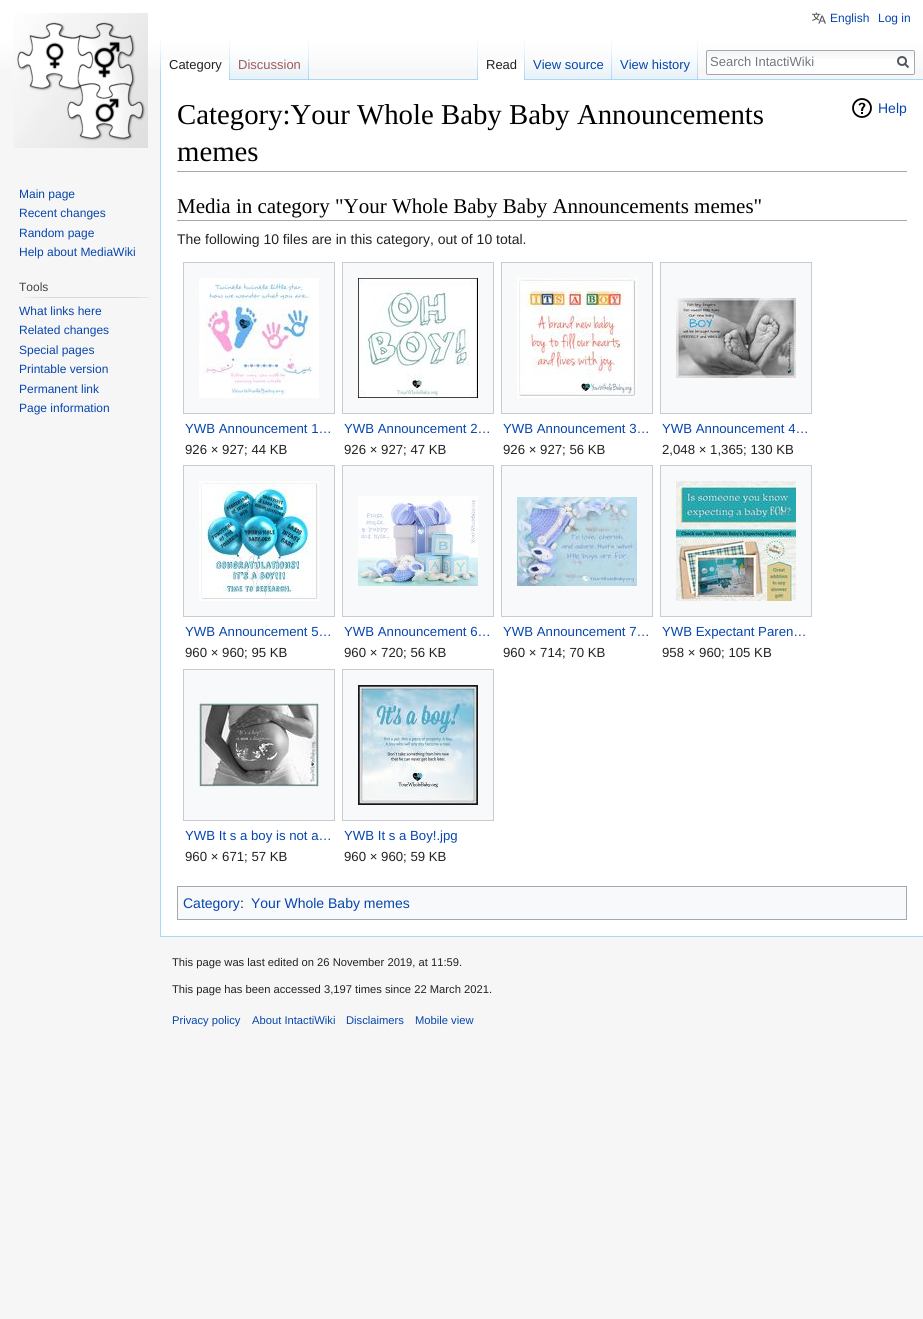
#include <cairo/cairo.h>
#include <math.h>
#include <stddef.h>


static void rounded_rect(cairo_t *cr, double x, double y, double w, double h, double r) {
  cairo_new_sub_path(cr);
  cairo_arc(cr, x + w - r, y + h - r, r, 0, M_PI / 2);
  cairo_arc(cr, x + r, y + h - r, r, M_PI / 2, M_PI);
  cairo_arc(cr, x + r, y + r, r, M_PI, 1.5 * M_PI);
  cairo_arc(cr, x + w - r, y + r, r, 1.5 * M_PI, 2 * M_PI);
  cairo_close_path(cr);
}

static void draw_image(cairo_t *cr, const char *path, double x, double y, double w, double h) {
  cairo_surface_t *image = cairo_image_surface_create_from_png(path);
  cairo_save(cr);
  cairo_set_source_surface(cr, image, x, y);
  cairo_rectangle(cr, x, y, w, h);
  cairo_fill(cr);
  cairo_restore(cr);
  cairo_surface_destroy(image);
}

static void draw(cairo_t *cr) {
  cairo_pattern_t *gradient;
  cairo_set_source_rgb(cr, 246 / 255.0, 246 / 255.0, 246 / 255.0);
  cairo_paint(cr);
  gradient = cairo_pattern_create_linear(462, 0, 462, 80);
  cairo_pattern_add_color_stop_rgba(gradient, 0.5, 1, 1, 1, 1);
  cairo_pattern_add_color_stop_rgba(gradient, 1, 246 / 255.0, 246 / 255.0, 246 / 255.0, 1);
  cairo_set_source(cr, gradient);
  cairo_pattern_destroy(gradient);
  cairo_rectangle(cr, 0, 0, 923, 69);
  cairo_fill(cr);
  draw_image(cr, "images/1.png", 812, 12, 14, 12);
  draw_image(cr, "images/2.png", 160, 40, 1, 39);
  cairo_set_source_rgb(cr, 1, 1, 1);
  cairo_rectangle(cr, 161, 60, 68, 20);
  cairo_fill(cr);
  draw_image(cr, "images/3.png", 229, 40, 1, 40);
  draw_image(cr, "images/4.png", 230, 40, 78, 39);
  draw_image(cr, "images/2.png", 308, 40, 1, 39);
  draw_image(cr, "images/2.png", 477, 40, 1, 39);
  cairo_set_source_rgb(cr, 167 / 255.0, 215 / 255.0, 249 / 255.0);
  cairo_rectangle(cr, 230, 79, 693, 1);
  cairo_fill(cr);
  cairo_set_source_rgb(cr, 1, 1, 1);
  cairo_rectangle(cr, 478, 60, 46, 20);
  cairo_fill(cr);
  draw_image(cr, "images/3.png", 524, 40, 1, 40);
  draw_image(cr, "images/5.png", 525, 62, 86, 17);
  draw_image(cr, "images/2.png", 611, 40, 1, 39);
  draw_image(cr, "images/6.png", 612, 40, 85, 39);
  draw_image(cr, "images/2.png", 697, 40, 1, 39);
  rounded_rect(cr, 706, 50, 209, 25, 2);
  cairo_fill(cr);
  draw_image(cr, "images/7.png", 706, 51, 209, 8);
  rounded_rect(cr, 706.5, 50.5, 208, 24, 1.5);
  cairo_set_source_rgb(cr, 162 / 255.0, 169 / 255.0, 177 / 255.0);
  cairo_set_line_width(cr, 1);
  cairo_stroke(cr);
  cairo_new_path(cr);
  cairo_move_to(cr, 908.5, 67.5);
  cairo_line_to(cr, 904.5, 63.5);
  cairo_set_source_rgb(cr, 84 / 255.0, 89 / 255.0, 93 / 255.0);
  cairo_set_line_width(cr, 2);
  cairo_stroke(cr);
  cairo_arc(cr, 902, 61, 4, 0, 2 * M_PI);
  cairo_stroke(cr);
  draw_image(cr, "images/8.png", 13, 13, 135, 135);
  draw_image(cr, "images/9.png", 22, 297, 128, 1);
  cairo_set_source_rgb(cr, 1, 1, 1);
  cairo_rectangle(cr, 161, 80, 762, 856);
  cairo_fill(cr);
  cairo_set_source_rgb(cr, 167 / 255.0, 215 / 255.0, 249 / 255.0);
  cairo_rectangle(cr, 160, 936, 763, 1);
  cairo_fill(cr);
  cairo_rectangle(cr, 160, 79, 1, 858);
  cairo_fill(cr);
  cairo_set_source_rgb(cr, 162 / 255.0, 169 / 255.0, 177 / 255.0);
  cairo_rectangle(cr, 177, 171, 730, 1);
  cairo_fill(cr);
  draw_image(cr, "images/10.png", 852, 98, 20, 20);
  cairo_rectangle(cr, 177, 220, 730, 1);
  cairo_fill(cr);
  cairo_set_source_rgb(cr, 248 / 255.0, 249 / 255.0, 250 / 255.0);
  cairo_rectangle(cr, 183.5, 262.5, 151, 151);
  cairo_fill_preserve(cr);
  cairo_set_source_rgb(cr, 200 / 255.0, 204 / 255.0, 209 / 255.0);
  cairo_set_line_width(cr, 1);
  cairo_stroke(cr);
  draw_image(cr, "images/11.png", 199, 278, 120, 120);
  cairo_set_source_rgb(cr, 248 / 255.0, 249 / 255.0, 250 / 255.0);
  cairo_rectangle(cr, 342.5, 262.5, 151, 151);
  cairo_fill_preserve(cr);
  cairo_set_source_rgb(cr, 200 / 255.0, 204 / 255.0, 209 / 255.0);
  cairo_stroke(cr);
  draw_image(cr, "images/12.png", 358, 278, 120, 120);
  cairo_set_source_rgb(cr, 248 / 255.0, 249 / 255.0, 250 / 255.0);
  cairo_rectangle(cr, 501.5, 262.5, 151, 151);
  cairo_fill_preserve(cr);
  cairo_set_source_rgb(cr, 200 / 255.0, 204 / 255.0, 209 / 255.0);
  cairo_stroke(cr);
  draw_image(cr, "images/13.png", 517, 278, 120, 120);
  cairo_set_source_rgb(cr, 248 / 255.0, 249 / 255.0, 250 / 255.0);
  cairo_rectangle(cr, 660.5, 262.5, 151, 151);
  cairo_fill_preserve(cr);
  cairo_set_source_rgb(cr, 200 / 255.0, 204 / 255.0, 209 / 255.0);
  cairo_stroke(cr);
  draw_image(cr, "images/14.png", 676, 298, 120, 80);
  cairo_set_source_rgb(cr, 248 / 255.0, 249 / 255.0, 250 / 255.0);
  cairo_rectangle(cr, 183.5, 465.5, 151, 151);
  cairo_fill_preserve(cr);
  cairo_set_source_rgb(cr, 200 / 255.0, 204 / 255.0, 209 / 255.0);
  cairo_stroke(cr);
  draw_image(cr, "images/15.png", 199, 481, 120, 120);
  cairo_set_source_rgb(cr, 248 / 255.0, 249 / 255.0, 250 / 255.0);
  cairo_rectangle(cr, 342.5, 465.5, 151, 151);
  cairo_fill_preserve(cr);
  cairo_set_source_rgb(cr, 200 / 255.0, 204 / 255.0, 209 / 255.0);
  cairo_stroke(cr);
  draw_image(cr, "images/16.png", 358, 496, 120, 90);
  cairo_set_source_rgb(cr, 248 / 255.0, 249 / 255.0, 250 / 255.0);
  cairo_rectangle(cr, 501.5, 465.5, 151, 151);
  cairo_fill_preserve(cr);
  cairo_set_source_rgb(cr, 200 / 255.0, 204 / 255.0, 209 / 255.0);
  cairo_stroke(cr);
  draw_image(cr, "images/17.png", 517, 497, 120, 89);
  cairo_set_source_rgb(cr, 248 / 255.0, 249 / 255.0, 250 / 255.0);
  cairo_rectangle(cr, 660.5, 465.5, 151, 151);
  cairo_fill_preserve(cr);
  cairo_set_source_rgb(cr, 200 / 255.0, 204 / 255.0, 209 / 255.0);
  cairo_stroke(cr);
  draw_image(cr, "images/18.png", 676, 481, 120, 120);
  cairo_set_source_rgb(cr, 248 / 255.0, 249 / 255.0, 250 / 255.0);
  cairo_rectangle(cr, 183.5, 669.5, 151, 151);
  cairo_fill_preserve(cr);
  cairo_set_source_rgb(cr, 200 / 255.0, 204 / 255.0, 209 / 255.0);
  cairo_stroke(cr);
  draw_image(cr, "images/19.png", 199, 703, 120, 84);
  cairo_set_source_rgb(cr, 248 / 255.0, 249 / 255.0, 250 / 255.0);
  cairo_rectangle(cr, 342.5, 669.5, 151, 151);
  cairo_fill_preserve(cr);
  cairo_set_source_rgb(cr, 200 / 255.0, 204 / 255.0, 209 / 255.0);
  cairo_stroke(cr);
  draw_image(cr, "images/20.png", 358, 685, 120, 120);
  cairo_set_source_rgb(cr, 248 / 255.0, 249 / 255.0, 250 / 255.0);
  cairo_rectangle(cr, 177.5, 886.5, 729, 33);
  cairo_fill_preserve(cr);
  cairo_set_source_rgb(cr, 162 / 255.0, 169 / 255.0, 177 / 255.0);
  cairo_stroke(cr);
  cairo_select_font_face(cr, "Liberation Sans", CAIRO_FONT_SLANT_NORMAL, CAIRO_FONT_WEIGHT_NORMAL);
  cairo_set_font_size(cr, 12);
  cairo_set_source_rgb(cr, 6 / 255.0, 69 / 255.0, 173 / 255.0);
  cairo_move_to(cr, 830, 22);
  cairo_show_text(cr, "English");
  cairo_move_to(cr, 878, 22);
  cairo_show_text(cr, "Log in");
  cairo_set_font_size(cr, 13);
  cairo_set_source_rgb(cr, 34 / 255.0, 34 / 255.0, 34 / 255.0);
  cairo_move_to(cr, 169, 69);
  cairo_show_text(cr, "Category");
  cairo_set_source_rgb(cr, 165 / 255.0, 88 / 255.0, 88 / 255.0);
  cairo_move_to(cr, 238, 69);
  cairo_show_text(cr, "Discussion");
  cairo_set_source_rgb(cr, 34 / 255.0, 34 / 255.0, 34 / 255.0);
  cairo_move_to(cr, 486, 69);
  cairo_show_text(cr, "Read");
  cairo_set_source_rgb(cr, 6 / 255.0, 69 / 255.0, 173 / 255.0);
  cairo_move_to(cr, 533, 69);
  cairo_show_text(cr, "View source");
  cairo_move_to(cr, 620, 69);
  cairo_show_text(cr, "View history");
  cairo_set_source_rgb(cr, 114 / 255.0, 119 / 255.0, 125 / 255.0);
  cairo_move_to(cr, 710, 66);
  cairo_show_text(cr, "Search IntactiWiki");
  cairo_set_font_size(cr, 12);
  cairo_set_source_rgb(cr, 6 / 255.0, 69 / 255.0, 173 / 255.0);
  cairo_move_to(cr, 19, 198);
  cairo_show_text(cr, "Main page");
  cairo_move_to(cr, 19, 217);
  cairo_show_text(cr, "Recent changes");
  cairo_move_to(cr, 19, 237);
  cairo_show_text(cr, "Random page");
  cairo_move_to(cr, 19, 256);
  cairo_show_text(cr, "Help about MediaWiki");
  cairo_set_source_rgb(cr, 68 / 255.0, 68 / 255.0, 68 / 255.0);
  cairo_move_to(cr, 19, 291);
  cairo_show_text(cr, "Tools");
  cairo_set_source_rgb(cr, 6 / 255.0, 69 / 255.0, 173 / 255.0);
  cairo_move_to(cr, 19, 315);
  cairo_show_text(cr, "What links here");
  cairo_move_to(cr, 19, 334);
  cairo_show_text(cr, "Related changes");
  cairo_move_to(cr, 19, 354);
  cairo_show_text(cr, "Special pages");
  cairo_move_to(cr, 19, 373);
  cairo_show_text(cr, "Printable version");
  cairo_move_to(cr, 19, 393);
  cairo_show_text(cr, "Permanent link");
  cairo_move_to(cr, 19, 412);
  cairo_show_text(cr, "Page information");
  cairo_select_font_face(cr, "Liberation Serif", CAIRO_FONT_SLANT_NORMAL, CAIRO_FONT_WEIGHT_NORMAL);
  cairo_set_font_size(cr, 28.8);
  cairo_set_source_rgb(cr, 0, 0, 0);
  cairo_move_to(cr, 177, 124);
  cairo_show_text(cr, "Category:Your Whole Baby Baby Announcements");
  cairo_move_to(cr, 177, 161);
  cairo_show_text(cr, "memes");
  cairo_select_font_face(cr, "Liberation Sans", CAIRO_FONT_SLANT_NORMAL, CAIRO_FONT_WEIGHT_NORMAL);
  cairo_set_font_size(cr, 14);
  cairo_set_source_rgb(cr, 6 / 255.0, 69 / 255.0, 173 / 255.0);
  cairo_move_to(cr, 878, 113);
  cairo_show_text(cr, "Help");
  cairo_select_font_face(cr, "Liberation Serif", CAIRO_FONT_SLANT_NORMAL, CAIRO_FONT_WEIGHT_NORMAL);
  cairo_set_font_size(cr, 21);
  cairo_set_source_rgb(cr, 0, 0, 0);
  cairo_move_to(cr, 177, 213);
  cairo_show_text(cr, "Media in category \"Your Whole Baby Baby Announcements memes\"");
  cairo_select_font_face(cr, "Liberation Sans", CAIRO_FONT_SLANT_NORMAL, CAIRO_FONT_WEIGHT_NORMAL);
  cairo_set_font_size(cr, 14);
  cairo_set_source_rgb(cr, 34 / 255.0, 34 / 255.0, 34 / 255.0);
  cairo_move_to(cr, 177, 244);
  cairo_show_text(cr, "The following 10 files are in this category, out of 10 total.");
  cairo_set_font_size(cr, 13.2);
  cairo_set_source_rgb(cr, 6 / 255.0, 69 / 255.0, 173 / 255.0);
  cairo_move_to(cr, 185, 433);
  cairo_show_text(cr, "YWB Announcement 1…");
  cairo_set_source_rgb(cr, 34 / 255.0, 34 / 255.0, 34 / 255.0);
  cairo_move_to(cr, 185, 454);
  cairo_show_text(cr, "926 × 927; 44 KB");
  cairo_set_source_rgb(cr, 6 / 255.0, 69 / 255.0, 173 / 255.0);
  cairo_move_to(cr, 344, 433);
  cairo_show_text(cr, "YWB Announcement 2…");
  cairo_set_source_rgb(cr, 34 / 255.0, 34 / 255.0, 34 / 255.0);
  cairo_move_to(cr, 344, 454);
  cairo_show_text(cr, "926 × 927; 47 KB");
  cairo_set_source_rgb(cr, 6 / 255.0, 69 / 255.0, 173 / 255.0);
  cairo_move_to(cr, 503, 433);
  cairo_show_text(cr, "YWB Announcement 3…");
  cairo_set_source_rgb(cr, 34 / 255.0, 34 / 255.0, 34 / 255.0);
  cairo_move_to(cr, 503, 454);
  cairo_show_text(cr, "926 × 927; 56 KB");
  cairo_set_source_rgb(cr, 6 / 255.0, 69 / 255.0, 173 / 255.0);
  cairo_move_to(cr, 662, 433);
  cairo_show_text(cr, "YWB Announcement 4…");
  cairo_set_source_rgb(cr, 34 / 255.0, 34 / 255.0, 34 / 255.0);
  cairo_move_to(cr, 662, 454);
  cairo_show_text(cr, "2,048 × 1,365; 130 KB");
  cairo_set_source_rgb(cr, 6 / 255.0, 69 / 255.0, 173 / 255.0);
  cairo_move_to(cr, 185, 636);
  cairo_show_text(cr, "YWB Announcement 5…");
  cairo_set_source_rgb(cr, 34 / 255.0, 34 / 255.0, 34 / 255.0);
  cairo_move_to(cr, 185, 657);
  cairo_show_text(cr, "960 × 960; 95 KB");
  cairo_set_source_rgb(cr, 6 / 255.0, 69 / 255.0, 173 / 255.0);
  cairo_move_to(cr, 344, 636);
  cairo_show_text(cr, "YWB Announcement 6…");
  cairo_set_source_rgb(cr, 34 / 255.0, 34 / 255.0, 34 / 255.0);
  cairo_move_to(cr, 344, 657);
  cairo_show_text(cr, "960 × 720; 56 KB");
  cairo_set_source_rgb(cr, 6 / 255.0, 69 / 255.0, 173 / 255.0);
  cairo_move_to(cr, 503, 636);
  cairo_show_text(cr, "YWB Announcement 7…");
  cairo_set_source_rgb(cr, 34 / 255.0, 34 / 255.0, 34 / 255.0);
  cairo_move_to(cr, 503, 657);
  cairo_show_text(cr, "960 × 714; 70 KB");
  cairo_set_source_rgb(cr, 6 / 255.0, 69 / 255.0, 173 / 255.0);
  cairo_move_to(cr, 662, 636);
  cairo_show_text(cr, "YWB Expectant Paren…");
  cairo_set_source_rgb(cr, 34 / 255.0, 34 / 255.0, 34 / 255.0);
  cairo_move_to(cr, 662, 657);
  cairo_show_text(cr, "958 × 960; 105 KB");
  cairo_set_source_rgb(cr, 6 / 255.0, 69 / 255.0, 173 / 255.0);
  cairo_move_to(cr, 185, 840);
  cairo_show_text(cr, "YWB It s a boy is not a…");
  cairo_set_source_rgb(cr, 34 / 255.0, 34 / 255.0, 34 / 255.0);
  cairo_move_to(cr, 185, 861);
  cairo_show_text(cr, "960 × 671; 57 KB");
  cairo_set_source_rgb(cr, 6 / 255.0, 69 / 255.0, 173 / 255.0);
  cairo_move_to(cr, 344, 840);
  cairo_show_text(cr, "YWB It s a Boy!.jpg");
  cairo_set_source_rgb(cr, 34 / 255.0, 34 / 255.0, 34 / 255.0);
  cairo_move_to(cr, 344, 861);
  cairo_show_text(cr, "960 × 960; 59 KB");
  cairo_set_font_size(cr, 14);
  cairo_set_source_rgb(cr, 6 / 255.0, 69 / 255.0, 173 / 255.0);
  cairo_move_to(cr, 183, 908);
  cairo_show_text(cr, "Category");
  cairo_set_source_rgb(cr, 34 / 255.0, 34 / 255.0, 34 / 255.0);
  cairo_move_to(cr, 240, 908);
  cairo_show_text(cr, ":");
  cairo_set_source_rgb(cr, 6 / 255.0, 69 / 255.0, 173 / 255.0);
  cairo_move_to(cr, 251, 908);
  cairo_show_text(cr, "Your Whole Baby memes");
  cairo_set_font_size(cr, 11.2);
  cairo_set_source_rgb(cr, 34 / 255.0, 34 / 255.0, 34 / 255.0);
  cairo_move_to(cr, 172, 966);
  cairo_show_text(cr, "This page was last edited on 26 November 2019, at 11:59.");
  cairo_move_to(cr, 172, 993);
  cairo_show_text(cr, "This page has been accessed 3,197 times since 22 March 2021.");
  cairo_set_source_rgb(cr, 6 / 255.0, 69 / 255.0, 173 / 255.0);
  cairo_move_to(cr, 172, 1024);
  cairo_show_text(cr, "Privacy policy");
  cairo_move_to(cr, 252, 1024);
  cairo_show_text(cr, "About IntactiWiki");
  cairo_move_to(cr, 346, 1024);
  cairo_show_text(cr, "Disclaimers");
  cairo_move_to(cr, 415, 1024);
  cairo_show_text(cr, "Mobile view");
}

int main(void) {
  cairo_surface_t *surface = cairo_image_surface_create(CAIRO_FORMAT_RGB24, 923, 1319);
  cairo_t *cr = cairo_create(surface);
  cairo_font_options_t *options = cairo_font_options_create();
  cairo_font_options_set_hint_metrics(options, CAIRO_HINT_METRICS_OFF);
  cairo_font_options_set_hint_style(options, CAIRO_HINT_STYLE_NONE);
  cairo_set_font_options(cr, options);
  cairo_set_miter_limit(cr, 4);
  draw(cr);
  cairo_surface_write_to_png(surface, "out.png");
  cairo_font_options_destroy(options);
  cairo_destroy(cr);
  cairo_surface_destroy(surface);
  return 0;
}
